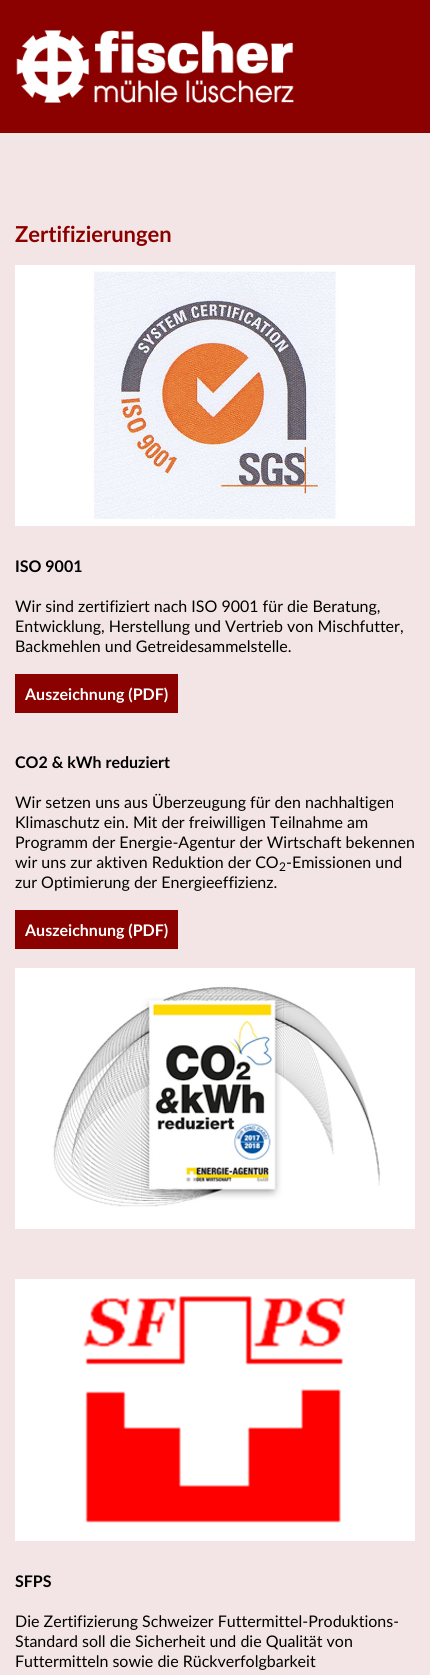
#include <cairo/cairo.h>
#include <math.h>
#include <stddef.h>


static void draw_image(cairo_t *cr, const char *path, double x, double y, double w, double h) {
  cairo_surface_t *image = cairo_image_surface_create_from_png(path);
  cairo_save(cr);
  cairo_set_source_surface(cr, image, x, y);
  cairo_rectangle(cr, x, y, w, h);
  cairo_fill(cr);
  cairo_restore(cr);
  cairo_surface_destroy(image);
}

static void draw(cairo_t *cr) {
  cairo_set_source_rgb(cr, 243 / 255.0, 229 / 255.0, 229 / 255.0);
  cairo_paint(cr);
  cairo_set_source_rgb(cr, 139 / 255.0, 1 / 255.0, 0);
  cairo_rectangle(cr, 0, 0, 430, 133);
  cairo_fill(cr);
  draw_image(cr, "images/1.png", 16, 30, 278, 73);
  draw_image(cr, "images/2.png", 15, 265, 400, 261);
  cairo_rectangle(cr, 15, 674, 163, 39);
  cairo_fill(cr);
  cairo_rectangle(cr, 15, 910, 163, 39);
  cairo_fill(cr);
  draw_image(cr, "images/3.png", 15, 968, 400, 261);
  draw_image(cr, "images/4.png", 15, 1279, 400, 262);
  cairo_select_font_face(cr, "Lato", CAIRO_FONT_SLANT_NORMAL, CAIRO_FONT_WEIGHT_BOLD);
  cairo_set_font_size(cr, 22);
  cairo_move_to(cr, 15, 242);
  cairo_show_text(cr, "Zertifizierungen");
  cairo_set_font_size(cr, 16);
  cairo_set_source_rgb(cr, 0, 0, 0);
  cairo_move_to(cr, 15, 572);
  cairo_show_text(cr, "ISO 9001");
  cairo_select_font_face(cr, "Lato", CAIRO_FONT_SLANT_NORMAL, CAIRO_FONT_WEIGHT_NORMAL);
  cairo_move_to(cr, 15, 612);
  cairo_show_text(cr, "Wir sind zertifiziert nach ISO 9001 für die Beratung,");
  cairo_move_to(cr, 15, 632);
  cairo_show_text(cr, "Entwicklung, Herstellung und Vertrieb von Mischfutter,");
  cairo_move_to(cr, 15, 652);
  cairo_show_text(cr, "Backmehlen und Getreidesammelstelle.");
  cairo_select_font_face(cr, "Lato", CAIRO_FONT_SLANT_NORMAL, CAIRO_FONT_WEIGHT_BOLD);
  cairo_set_source_rgb(cr, 1, 1, 1);
  cairo_move_to(cr, 25, 700);
  cairo_show_text(cr, "Auszeichnung (PDF)");
  cairo_set_source_rgb(cr, 0, 0, 0);
  cairo_move_to(cr, 15, 768);
  cairo_show_text(cr, "CO2 & kWh reduziert");
  cairo_select_font_face(cr, "Lato", CAIRO_FONT_SLANT_NORMAL, CAIRO_FONT_WEIGHT_NORMAL);
  cairo_move_to(cr, 15, 808);
  cairo_show_text(cr, "Wir setzen uns aus Überzeugung für den nachhaltigen");
  cairo_move_to(cr, 15, 828);
  cairo_show_text(cr, "Klimaschutz ein. Mit der freiwilligen Teilnahme am");
  cairo_move_to(cr, 15, 848);
  cairo_show_text(cr, "Programm der Energie-Agentur der Wirtschaft bekennen");
  cairo_move_to(cr, 15, 868);
  cairo_show_text(cr, "wir uns zur aktiven Reduktion der CO");
  cairo_set_font_size(cr, 12);
  cairo_move_to(cr, 279, 871);
  cairo_show_text(cr, "2");
  cairo_set_font_size(cr, 16);
  cairo_move_to(cr, 286, 868);
  cairo_show_text(cr, "-Emissionen und");
  cairo_move_to(cr, 15, 888);
  cairo_show_text(cr, "zur Optimierung der Energieeffizienz.");
  cairo_select_font_face(cr, "Lato", CAIRO_FONT_SLANT_NORMAL, CAIRO_FONT_WEIGHT_BOLD);
  cairo_set_source_rgb(cr, 1, 1, 1);
  cairo_move_to(cr, 25, 936);
  cairo_show_text(cr, "Auszeichnung (PDF)");
  cairo_set_source_rgb(cr, 0, 0, 0);
  cairo_move_to(cr, 15, 1587);
  cairo_show_text(cr, "SFPS");
  cairo_select_font_face(cr, "Lato", CAIRO_FONT_SLANT_NORMAL, CAIRO_FONT_WEIGHT_NORMAL);
  cairo_move_to(cr, 15, 1627);
  cairo_show_text(cr, "Die Zertifizierung Schweizer Futtermittel-Produktions-");
  cairo_move_to(cr, 15, 1647);
  cairo_show_text(cr, "Standard soll die Sicherheit und die Qualität von");
  cairo_move_to(cr, 15, 1667);
  cairo_show_text(cr, "Futtermitteln sowie die Rückverfolgbarkeit");
}

int main(void) {
  cairo_surface_t *surface = cairo_image_surface_create(CAIRO_FORMAT_RGB24, 430, 1675);
  cairo_t *cr = cairo_create(surface);
  cairo_font_options_t *options = cairo_font_options_create();
  cairo_font_options_set_hint_metrics(options, CAIRO_HINT_METRICS_OFF);
  cairo_font_options_set_hint_style(options, CAIRO_HINT_STYLE_NONE);
  cairo_set_font_options(cr, options);
  cairo_set_miter_limit(cr, 4);
  draw(cr);
  cairo_surface_write_to_png(surface, "out.png");
  cairo_font_options_destroy(options);
  cairo_destroy(cr);
  cairo_surface_destroy(surface);
  return 0;
}
